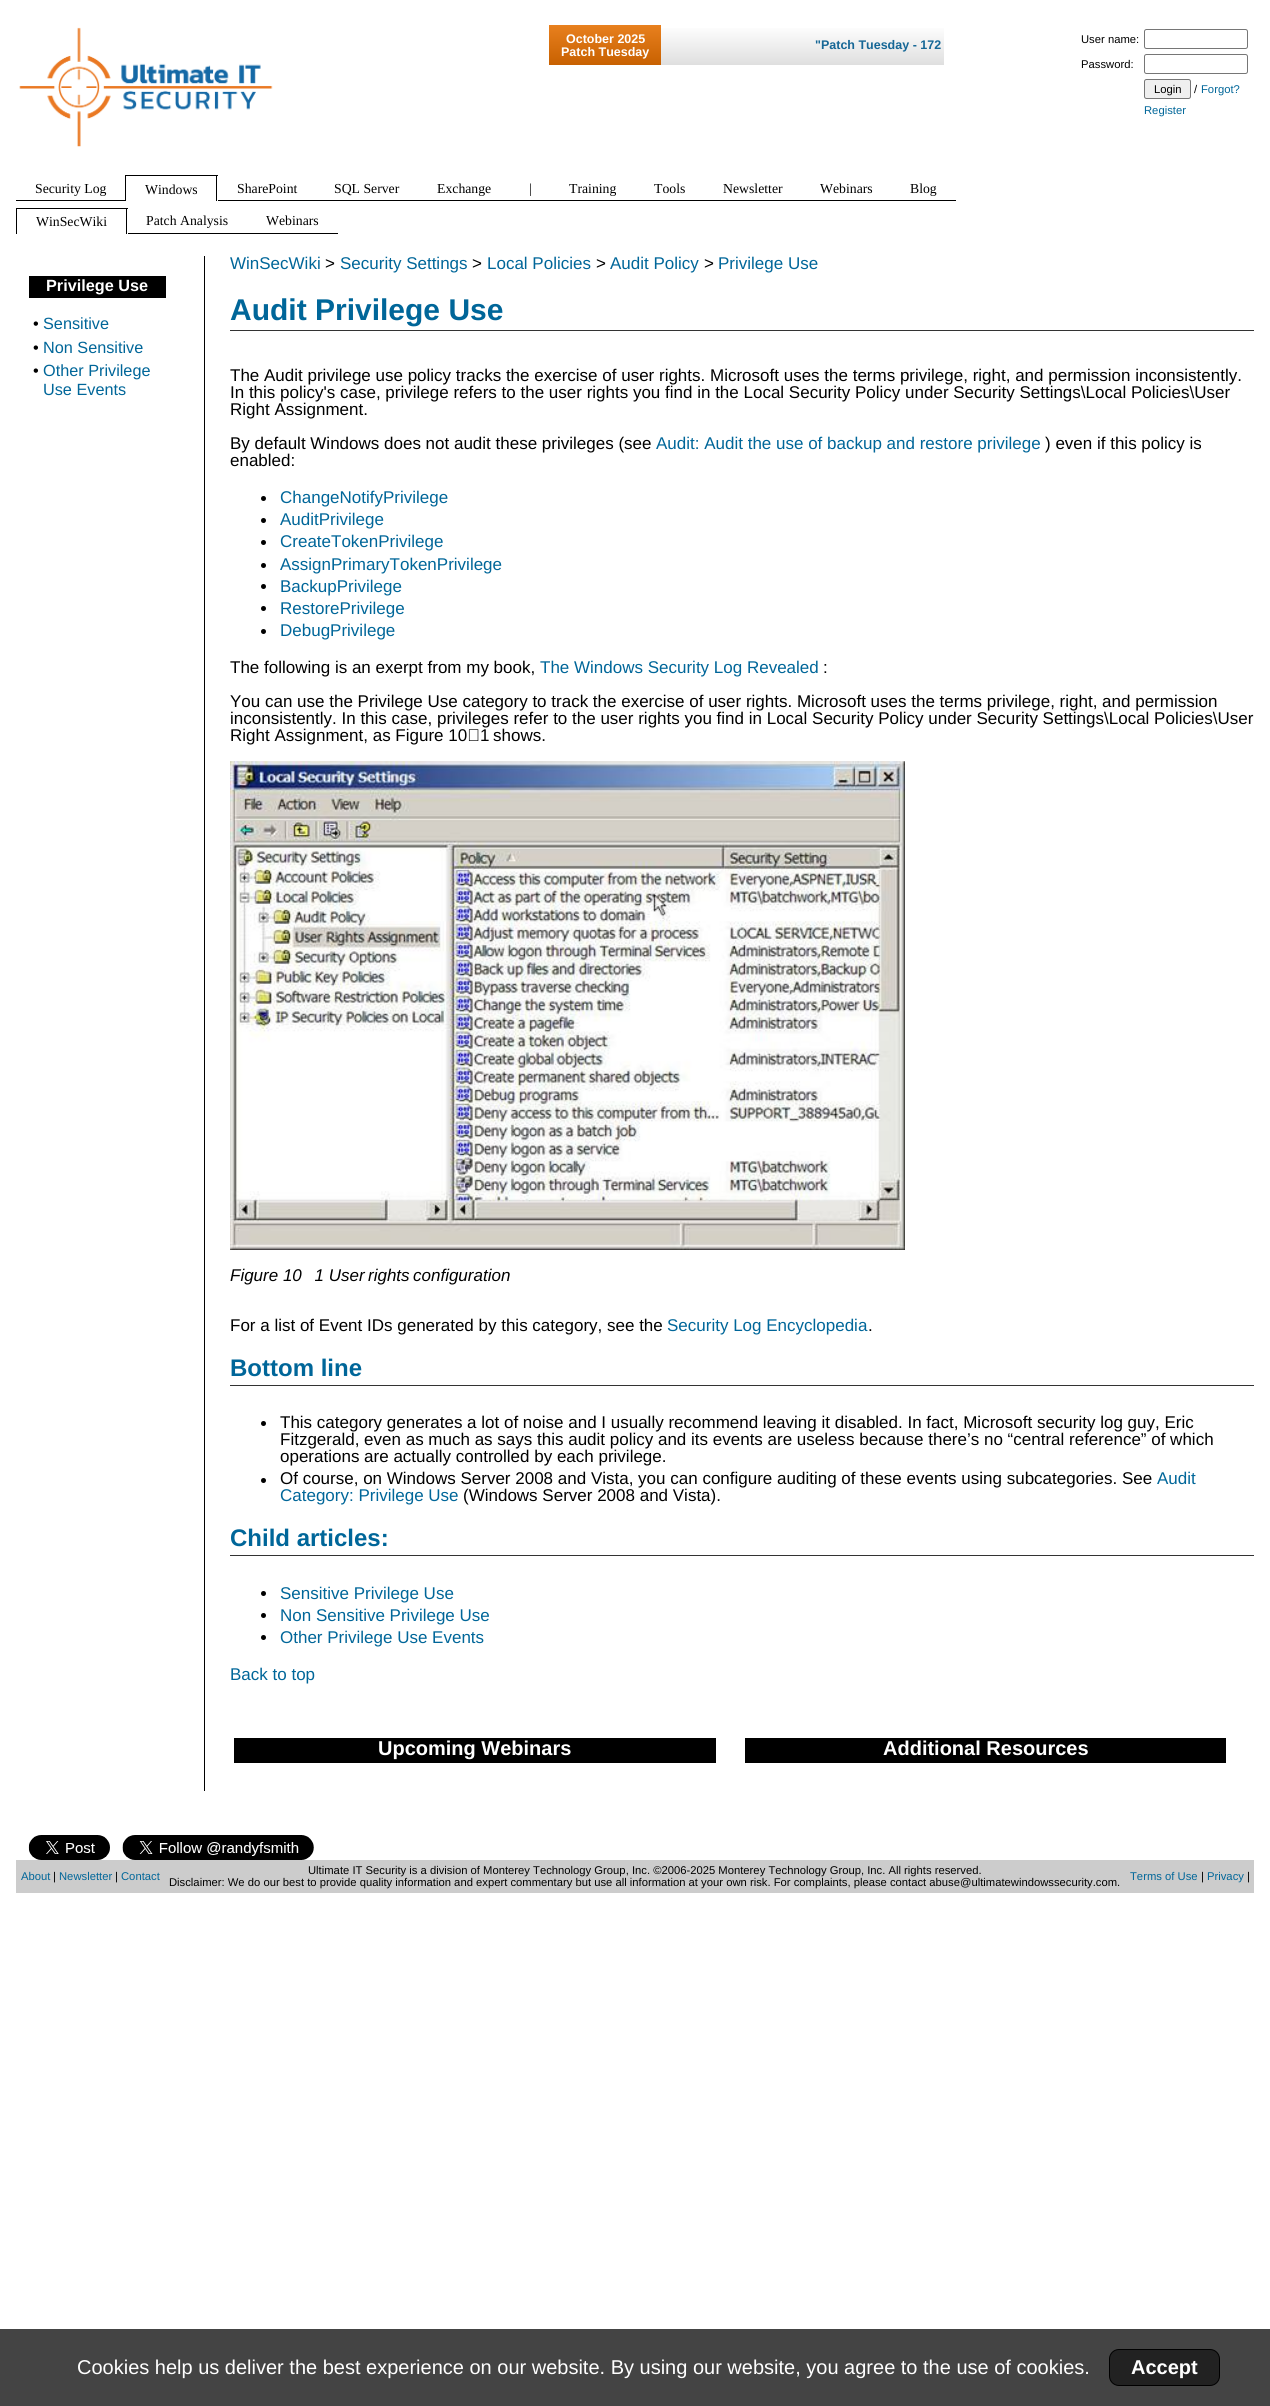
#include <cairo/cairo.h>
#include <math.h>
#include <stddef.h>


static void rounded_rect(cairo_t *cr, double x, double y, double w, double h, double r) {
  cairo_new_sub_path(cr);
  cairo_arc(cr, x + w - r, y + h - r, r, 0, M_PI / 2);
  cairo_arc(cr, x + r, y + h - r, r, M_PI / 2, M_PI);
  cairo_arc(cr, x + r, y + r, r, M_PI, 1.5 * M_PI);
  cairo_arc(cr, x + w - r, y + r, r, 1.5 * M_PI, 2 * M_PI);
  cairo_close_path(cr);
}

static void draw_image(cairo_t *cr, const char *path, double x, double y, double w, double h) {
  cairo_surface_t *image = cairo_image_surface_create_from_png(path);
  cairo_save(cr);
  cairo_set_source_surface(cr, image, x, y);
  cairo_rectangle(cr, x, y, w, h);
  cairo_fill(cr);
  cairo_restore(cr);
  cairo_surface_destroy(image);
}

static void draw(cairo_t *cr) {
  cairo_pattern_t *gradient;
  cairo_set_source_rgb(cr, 1, 1, 1);
  cairo_paint(cr);
  draw_image(cr, "images/1.png", 19, 27, 254, 120);
  gradient = cairo_pattern_create_linear(605, 25, 605, 65);
  cairo_pattern_add_color_stop_rgba(gradient, 0, 232 / 255.0, 128 / 255.0, 30 / 255.0, 1);
  cairo_pattern_add_color_stop_rgba(gradient, 1, 200 / 255.0, 97 / 255.0, 1 / 255.0, 1);
  cairo_set_source(cr, gradient);
  cairo_pattern_destroy(gradient);
  cairo_rectangle(cr, 549, 25, 112, 40);
  cairo_fill(cr);
  gradient = cairo_pattern_create_linear(803, 25, 803, 65);
  cairo_pattern_add_color_stop_rgba(gradient, 0, 1, 1, 1, 1);
  cairo_pattern_add_color_stop_rgba(gradient, 1, 223 / 255.0, 223 / 255.0, 223 / 255.0, 1);
  cairo_set_source(cr, gradient);
  cairo_pattern_destroy(gradient);
  cairo_rectangle(cr, 661, 28, 283, 37);
  cairo_fill(cr);
  rounded_rect(cr, 1144.5, 29.5, 103, 19, 2);
  cairo_set_source_rgb(cr, 118 / 255.0, 118 / 255.0, 118 / 255.0);
  cairo_set_line_width(cr, 1);
  cairo_stroke(cr);
  rounded_rect(cr, 1144.5, 54.5, 103, 19, 2);
  cairo_stroke(cr);
  cairo_set_source_rgb(cr, 239 / 255.0, 239 / 255.0, 239 / 255.0);
  rounded_rect(cr, 1144.5, 79.5, 46, 19, 2);
  cairo_fill_preserve(cr);
  cairo_set_source_rgb(cr, 118 / 255.0, 118 / 255.0, 118 / 255.0);
  cairo_stroke(cr);
  cairo_set_source_rgb(cr, 0, 0, 0);
  cairo_rectangle(cr, 16, 200, 109, 1);
  cairo_fill(cr);
  cairo_rectangle(cr, 125, 175, 93, 1);
  cairo_fill(cr);
  cairo_rectangle(cr, 216, 175, 1, 26);
  cairo_fill(cr);
  cairo_rectangle(cr, 125, 175, 1, 26);
  cairo_fill(cr);
  cairo_rectangle(cr, 218, 200, 738, 1);
  cairo_fill(cr);
  cairo_rectangle(cr, 16, 208, 112, 1);
  cairo_fill(cr);
  cairo_rectangle(cr, 126, 208, 1, 26);
  cairo_fill(cr);
  cairo_rectangle(cr, 16, 208, 1, 26);
  cairo_fill(cr);
  cairo_rectangle(cr, 128, 233, 210, 1);
  cairo_fill(cr);
  cairo_rectangle(cr, 29, 276, 137, 22);
  cairo_fill(cr);
  cairo_rectangle(cr, 204, 256, 1, 1535);
  cairo_fill(cr);
  cairo_set_source_rgb(cr, 51 / 255.0, 51 / 255.0, 51 / 255.0);
  cairo_rectangle(cr, 230, 330, 1024, 1);
  cairo_fill(cr);
  cairo_set_source_rgb(cr, 0, 0, 0);
  cairo_arc(cr, 263.5, 498.5, 2.5, 0, 2 * M_PI);
  cairo_fill(cr);
  cairo_arc(cr, 263.5, 520.5, 2.5, 0, 2 * M_PI);
  cairo_fill(cr);
  cairo_arc(cr, 263.5, 542.5, 2.5, 0, 2 * M_PI);
  cairo_fill(cr);
  cairo_arc(cr, 263.5, 565.5, 2.5, 0, 2 * M_PI);
  cairo_fill(cr);
  cairo_arc(cr, 263.5, 586.5, 2.5, 0, 2 * M_PI);
  cairo_fill(cr);
  cairo_arc(cr, 263.5, 608.5, 2.5, 0, 2 * M_PI);
  cairo_fill(cr);
  cairo_arc(cr, 263.5, 631.5, 2.5, 0, 2 * M_PI);
  cairo_fill(cr);
  draw_image(cr, "images/2.png", 230, 761, 675, 489);
  cairo_set_source_rgb(cr, 51 / 255.0, 51 / 255.0, 51 / 255.0);
  cairo_rectangle(cr, 230, 1385, 1024, 1);
  cairo_fill(cr);
  cairo_set_source_rgb(cr, 0, 0, 0);
  cairo_arc(cr, 263.5, 1423.5, 2.5, 0, 2 * M_PI);
  cairo_fill(cr);
  cairo_arc(cr, 263.5, 1480.5, 2.5, 0, 2 * M_PI);
  cairo_fill(cr);
  cairo_set_source_rgb(cr, 51 / 255.0, 51 / 255.0, 51 / 255.0);
  cairo_rectangle(cr, 230, 1555, 1024, 1);
  cairo_fill(cr);
  cairo_set_source_rgb(cr, 0, 0, 0);
  cairo_arc(cr, 263.5, 1593.5, 2.5, 0, 2 * M_PI);
  cairo_fill(cr);
  cairo_arc(cr, 263.5, 1615.5, 2.5, 0, 2 * M_PI);
  cairo_fill(cr);
  cairo_arc(cr, 263.5, 1637.5, 2.5, 0, 2 * M_PI);
  cairo_fill(cr);
  cairo_rectangle(cr, 234, 1738, 482, 25);
  cairo_fill(cr);
  cairo_rectangle(cr, 745, 1738, 481, 25);
  cairo_fill(cr);
  draw_image(cr, "images/3.png", 28, 1835, 82, 25);
  draw_image(cr, "images/4.png", 122, 1835, 192, 25);
  cairo_set_source_rgb(cr, 204 / 255.0, 204 / 255.0, 204 / 255.0);
  cairo_rectangle(cr, 16, 1860, 1238, 33);
  cairo_fill(cr);
  cairo_set_source_rgb(cr, 68 / 255.0, 68 / 255.0, 68 / 255.0);
  cairo_rectangle(cr, 0, 2329, 1270, 77);
  cairo_fill(cr);
  cairo_set_source_rgb(cr, 34 / 255.0, 34 / 255.0, 34 / 255.0);
  rounded_rect(cr, 1109.5, 2349.5, 110, 36, 9.5);
  cairo_fill_preserve(cr);
  cairo_set_source_rgb(cr, 0, 0, 0);
  cairo_stroke(cr);
  cairo_select_font_face(cr, "Liberation Sans", CAIRO_FONT_SLANT_NORMAL, CAIRO_FONT_WEIGHT_BOLD);
  cairo_set_font_size(cr, 12.5);
  cairo_set_source_rgb(cr, 1, 1, 1);
  cairo_move_to(cr, 566, 43);
  cairo_show_text(cr, "October 2025");
  cairo_move_to(cr, 561, 56);
  cairo_show_text(cr, "Patch Tuesday");
  cairo_set_source_rgb(cr, 22 / 255.0, 103 / 255.0, 150 / 255.0);
  cairo_move_to(cr, 815, 49);
  cairo_show_text(cr, "\"Patch Tuesday - 172");
  cairo_select_font_face(cr, "Liberation Sans", CAIRO_FONT_SLANT_NORMAL, CAIRO_FONT_WEIGHT_NORMAL);
  cairo_set_font_size(cr, 11.25);
  cairo_set_source_rgb(cr, 0, 0, 0);
  cairo_move_to(cr, 1081, 43);
  cairo_show_text(cr, "User name:");
  cairo_move_to(cr, 1081, 68);
  cairo_show_text(cr, "Password:");
  cairo_move_to(cr, 1154, 93);
  cairo_show_text(cr, "Login");
  cairo_move_to(cr, 1194, 93);
  cairo_show_text(cr, "/");
  cairo_set_source_rgb(cr, 0, 102 / 255.0, 153 / 255.0);
  cairo_move_to(cr, 1201, 93);
  cairo_show_text(cr, "Forgot?");
  cairo_move_to(cr, 1144, 114);
  cairo_show_text(cr, "Register");
  cairo_select_font_face(cr, "Liberation Serif", CAIRO_FONT_SLANT_NORMAL, CAIRO_FONT_WEIGHT_NORMAL);
  cairo_set_font_size(cr, 13.75);
  cairo_set_source_rgb(cr, 0, 0, 0);
  cairo_move_to(cr, 35, 193);
  cairo_show_text(cr, "Security Log");
  cairo_move_to(cr, 145, 194);
  cairo_show_text(cr, "Windows");
  cairo_move_to(cr, 237, 193);
  cairo_show_text(cr, "SharePoint");
  cairo_move_to(cr, 334, 193);
  cairo_show_text(cr, "SQL Server");
  cairo_move_to(cr, 437, 193);
  cairo_show_text(cr, "Exchange");
  cairo_move_to(cr, 529, 193);
  cairo_show_text(cr, "|");
  cairo_move_to(cr, 569, 193);
  cairo_show_text(cr, "Training");
  cairo_move_to(cr, 654, 193);
  cairo_show_text(cr, "Tools");
  cairo_move_to(cr, 723, 193);
  cairo_show_text(cr, "Newsletter");
  cairo_move_to(cr, 820, 193);
  cairo_show_text(cr, "Webinars");
  cairo_move_to(cr, 910, 193);
  cairo_show_text(cr, "Blog");
  cairo_move_to(cr, 36, 226);
  cairo_show_text(cr, "WinSecWiki");
  cairo_move_to(cr, 146, 225);
  cairo_show_text(cr, "Patch Analysis");
  cairo_move_to(cr, 266, 225);
  cairo_show_text(cr, "Webinars");
  cairo_select_font_face(cr, "Liberation Sans", CAIRO_FONT_SLANT_NORMAL, CAIRO_FONT_WEIGHT_BOLD);
  cairo_set_font_size(cr, 16.25);
  cairo_set_source_rgb(cr, 1, 1, 1);
  cairo_move_to(cr, 46, 291);
  cairo_show_text(cr, "Privilege Use");
  cairo_select_font_face(cr, "Liberation Sans", CAIRO_FONT_SLANT_NORMAL, CAIRO_FONT_WEIGHT_NORMAL);
  cairo_set_source_rgb(cr, 0, 0, 0);
  cairo_move_to(cr, 33, 329);
  cairo_show_text(cr, "•");
  cairo_set_source_rgb(cr, 0, 102 / 255.0, 153 / 255.0);
  cairo_move_to(cr, 43, 329);
  cairo_show_text(cr, "Sensitive");
  cairo_set_source_rgb(cr, 0, 0, 0);
  cairo_move_to(cr, 33, 353);
  cairo_show_text(cr, "•");
  cairo_set_source_rgb(cr, 0, 102 / 255.0, 153 / 255.0);
  cairo_move_to(cr, 43, 353);
  cairo_show_text(cr, "Non Sensitive");
  cairo_set_source_rgb(cr, 0, 0, 0);
  cairo_move_to(cr, 33, 376);
  cairo_show_text(cr, "•");
  cairo_set_source_rgb(cr, 0, 102 / 255.0, 153 / 255.0);
  cairo_move_to(cr, 43, 376);
  cairo_show_text(cr, "Other Privilege");
  cairo_move_to(cr, 43, 395);
  cairo_show_text(cr, "Use Events");
  cairo_set_font_size(cr, 17);
  cairo_move_to(cr, 230, 269);
  cairo_show_text(cr, "WinSecWiki");
  cairo_set_source_rgb(cr, 0, 0, 0);
  cairo_move_to(cr, 325, 269);
  cairo_show_text(cr, ">");
  cairo_set_source_rgb(cr, 0, 102 / 255.0, 153 / 255.0);
  cairo_move_to(cr, 340, 269);
  cairo_show_text(cr, "Security Settings");
  cairo_set_source_rgb(cr, 0, 0, 0);
  cairo_move_to(cr, 472, 269);
  cairo_show_text(cr, ">");
  cairo_set_source_rgb(cr, 0, 102 / 255.0, 153 / 255.0);
  cairo_move_to(cr, 487, 269);
  cairo_show_text(cr, "Local Policies");
  cairo_set_source_rgb(cr, 0, 0, 0);
  cairo_move_to(cr, 596, 269);
  cairo_show_text(cr, ">");
  cairo_set_source_rgb(cr, 0, 102 / 255.0, 153 / 255.0);
  cairo_move_to(cr, 610, 269);
  cairo_show_text(cr, "Audit Policy");
  cairo_set_source_rgb(cr, 0, 0, 0);
  cairo_move_to(cr, 704, 269);
  cairo_show_text(cr, ">");
  cairo_set_source_rgb(cr, 0, 102 / 255.0, 153 / 255.0);
  cairo_move_to(cr, 718, 269);
  cairo_show_text(cr, "Privilege Use");
  cairo_select_font_face(cr, "Liberation Sans", CAIRO_FONT_SLANT_NORMAL, CAIRO_FONT_WEIGHT_BOLD);
  cairo_set_font_size(cr, 30);
  cairo_move_to(cr, 230, 320);
  cairo_show_text(cr, "Audit Privilege Use");
  cairo_select_font_face(cr, "Liberation Sans", CAIRO_FONT_SLANT_NORMAL, CAIRO_FONT_WEIGHT_NORMAL);
  cairo_set_font_size(cr, 17);
  cairo_set_source_rgb(cr, 0, 0, 0);
  cairo_move_to(cr, 230, 381);
  cairo_show_text(cr, "The Audit privilege use policy tracks the exercise of user rights. Microsoft uses the terms privilege, right, and permission inconsistently.");
  cairo_move_to(cr, 230, 398);
  cairo_show_text(cr, "In this policy's case, privilege refers to the user rights you find in the Local Security Policy under Security Settings\\Local Policies\\User");
  cairo_move_to(cr, 230, 415);
  cairo_show_text(cr, "Right Assignment.");
  cairo_move_to(cr, 230, 449);
  cairo_show_text(cr, "By default Windows does not audit these privileges (see");
  cairo_set_source_rgb(cr, 0, 102 / 255.0, 153 / 255.0);
  cairo_move_to(cr, 656, 449);
  cairo_show_text(cr, "Audit: Audit the use of backup and restore privilege");
  cairo_set_source_rgb(cr, 0, 0, 0);
  cairo_move_to(cr, 1045, 449);
  cairo_show_text(cr, ") even if this policy is");
  cairo_move_to(cr, 230, 466);
  cairo_show_text(cr, "enabled:");
  cairo_set_source_rgb(cr, 0, 102 / 255.0, 153 / 255.0);
  cairo_move_to(cr, 280, 503);
  cairo_show_text(cr, "ChangeNotifyPrivilege");
  cairo_move_to(cr, 280, 525);
  cairo_show_text(cr, "AuditPrivilege");
  cairo_move_to(cr, 280, 547);
  cairo_show_text(cr, "CreateTokenPrivilege");
  cairo_move_to(cr, 280, 570);
  cairo_show_text(cr, "AssignPrimaryTokenPrivilege");
  cairo_move_to(cr, 280, 592);
  cairo_show_text(cr, "BackupPrivilege");
  cairo_move_to(cr, 280, 614);
  cairo_show_text(cr, "RestorePrivilege");
  cairo_move_to(cr, 280, 636);
  cairo_show_text(cr, "DebugPrivilege");
  cairo_set_source_rgb(cr, 0, 0, 0);
  cairo_move_to(cr, 230, 673);
  cairo_show_text(cr, "The following is an exerpt from my book,");
  cairo_set_source_rgb(cr, 0, 102 / 255.0, 153 / 255.0);
  cairo_move_to(cr, 540, 673);
  cairo_show_text(cr, "The Windows Security Log Revealed");
  cairo_set_source_rgb(cr, 0, 0, 0);
  cairo_move_to(cr, 823, 673);
  cairo_show_text(cr, ":");
  cairo_move_to(cr, 230, 707);
  cairo_show_text(cr, "You can use the Privilege Use category to track the exercise of user rights. Microsoft uses the terms privilege, right, and permission");
  cairo_move_to(cr, 230, 724);
  cairo_show_text(cr, "inconsistently. In this case, privileges refer to the user rights you find in Local Security Policy under Security Settings\\Local Policies\\User");
  cairo_move_to(cr, 230, 741);
  cairo_show_text(cr, "Right Assignment, as Figure 10‑1");
  cairo_move_to(cr, 493, 741);
  cairo_show_text(cr, "shows.");
  cairo_select_font_face(cr, "Liberation Sans", CAIRO_FONT_SLANT_ITALIC, CAIRO_FONT_WEIGHT_NORMAL);
  cairo_move_to(cr, 230, 1281);
  cairo_show_text(cr, "Figure 10‑1 User");
  cairo_move_to(cr, 368, 1281);
  cairo_show_text(cr, "rights");
  cairo_move_to(cr, 413, 1281);
  cairo_show_text(cr, "configuration");
  cairo_select_font_face(cr, "Liberation Sans", CAIRO_FONT_SLANT_NORMAL, CAIRO_FONT_WEIGHT_NORMAL);
  cairo_move_to(cr, 230, 1331);
  cairo_show_text(cr, "For a list of Event IDs generated by this category, see the");
  cairo_set_source_rgb(cr, 0, 102 / 255.0, 153 / 255.0);
  cairo_move_to(cr, 667, 1331);
  cairo_show_text(cr, "Security Log Encyclopedia");
  cairo_set_source_rgb(cr, 0, 0, 0);
  cairo_move_to(cr, 868, 1331);
  cairo_show_text(cr, ".");
  cairo_select_font_face(cr, "Liberation Sans", CAIRO_FONT_SLANT_NORMAL, CAIRO_FONT_WEIGHT_BOLD);
  cairo_set_font_size(cr, 24);
  cairo_set_source_rgb(cr, 0, 102 / 255.0, 153 / 255.0);
  cairo_move_to(cr, 230, 1376);
  cairo_show_text(cr, "Bottom line");
  cairo_select_font_face(cr, "Liberation Sans", CAIRO_FONT_SLANT_NORMAL, CAIRO_FONT_WEIGHT_NORMAL);
  cairo_set_font_size(cr, 17);
  cairo_set_source_rgb(cr, 0, 0, 0);
  cairo_move_to(cr, 280, 1428);
  cairo_show_text(cr, "This category generates a lot of noise and I usually recommend leaving it disabled. In fact, Microsoft security log guy, Eric");
  cairo_move_to(cr, 280, 1445);
  cairo_show_text(cr, "Fitzgerald, even as much as says this audit policy and its events are useless because there’s no “central reference” of which");
  cairo_move_to(cr, 280, 1462);
  cairo_show_text(cr, "operations are actually controlled by each privilege.");
  cairo_move_to(cr, 280, 1484);
  cairo_show_text(cr, "Of course, on Windows Server 2008 and Vista, you can configure auditing of these events using subcategories. See");
  cairo_set_source_rgb(cr, 0, 102 / 255.0, 153 / 255.0);
  cairo_move_to(cr, 1157, 1484);
  cairo_show_text(cr, "Audit");
  cairo_move_to(cr, 280, 1501);
  cairo_show_text(cr, "Category: Privilege Use");
  cairo_set_source_rgb(cr, 0, 0, 0);
  cairo_move_to(cr, 463, 1501);
  cairo_show_text(cr, "(Windows Server 2008 and Vista).");
  cairo_select_font_face(cr, "Liberation Sans", CAIRO_FONT_SLANT_NORMAL, CAIRO_FONT_WEIGHT_BOLD);
  cairo_set_font_size(cr, 24);
  cairo_set_source_rgb(cr, 0, 102 / 255.0, 153 / 255.0);
  cairo_move_to(cr, 230, 1546);
  cairo_show_text(cr, "Child articles:");
  cairo_select_font_face(cr, "Liberation Sans", CAIRO_FONT_SLANT_NORMAL, CAIRO_FONT_WEIGHT_NORMAL);
  cairo_set_font_size(cr, 17);
  cairo_move_to(cr, 280, 1599);
  cairo_show_text(cr, "Sensitive Privilege Use");
  cairo_move_to(cr, 280, 1621);
  cairo_show_text(cr, "Non Sensitive Privilege Use");
  cairo_move_to(cr, 280, 1643);
  cairo_show_text(cr, "Other Privilege Use Events");
  cairo_move_to(cr, 230, 1680);
  cairo_show_text(cr, "Back to top");
  cairo_select_font_face(cr, "Liberation Sans", CAIRO_FONT_SLANT_NORMAL, CAIRO_FONT_WEIGHT_BOLD);
  cairo_set_font_size(cr, 20);
  cairo_set_source_rgb(cr, 1, 1, 1);
  cairo_move_to(cr, 378, 1755);
  cairo_show_text(cr, "Upcoming Webinars");
  cairo_move_to(cr, 883, 1755);
  cairo_show_text(cr, "Additional Resources");
  cairo_select_font_face(cr, "Liberation Sans", CAIRO_FONT_SLANT_NORMAL, CAIRO_FONT_WEIGHT_NORMAL);
  cairo_set_font_size(cr, 11.25);
  cairo_set_source_rgb(cr, 0, 102 / 255.0, 153 / 255.0);
  cairo_move_to(cr, 21, 1880);
  cairo_show_text(cr, "About");
  cairo_set_source_rgb(cr, 0, 0, 0);
  cairo_move_to(cr, 53, 1880);
  cairo_show_text(cr, "|");
  cairo_set_source_rgb(cr, 0, 102 / 255.0, 153 / 255.0);
  cairo_move_to(cr, 59, 1880);
  cairo_show_text(cr, "Newsletter");
  cairo_set_source_rgb(cr, 0, 0, 0);
  cairo_move_to(cr, 115, 1880);
  cairo_show_text(cr, "|");
  cairo_set_source_rgb(cr, 0, 102 / 255.0, 153 / 255.0);
  cairo_move_to(cr, 121, 1880);
  cairo_show_text(cr, "Contact");
  cairo_set_source_rgb(cr, 0, 0, 0);
  cairo_move_to(cr, 308, 1874);
  cairo_show_text(cr, "Ultimate IT Security is a division of Monterey Technology Group, Inc. ©2006-2025 Monterey Technology Group, Inc. All rights reserved.");
  cairo_move_to(cr, 169, 1886);
  cairo_show_text(cr, "Disclaimer: We do our best to provide quality information and expert commentary but use all information at your own risk. For complaints, please contact abuse@ultimatewindowssecurity.com.");
  cairo_set_source_rgb(cr, 0, 102 / 255.0, 153 / 255.0);
  cairo_move_to(cr, 1130, 1880);
  cairo_show_text(cr, "Terms of Use");
  cairo_set_source_rgb(cr, 0, 0, 0);
  cairo_move_to(cr, 1201, 1880);
  cairo_show_text(cr, "|");
  cairo_set_source_rgb(cr, 0, 102 / 255.0, 153 / 255.0);
  cairo_move_to(cr, 1207, 1880);
  cairo_show_text(cr, "Privacy");
  cairo_set_source_rgb(cr, 0, 0, 0);
  cairo_move_to(cr, 1247, 1880);
  cairo_show_text(cr, "|");
  cairo_set_font_size(cr, 20);
  cairo_set_source_rgb(cr, 1, 1, 1);
  cairo_move_to(cr, 77, 2374);
  cairo_show_text(cr, "Cookies help us deliver the best experience on our website. By using our website, you agree to the use of cookies.");
  cairo_select_font_face(cr, "Liberation Sans", CAIRO_FONT_SLANT_NORMAL, CAIRO_FONT_WEIGHT_BOLD);
  cairo_move_to(cr, 1131, 2374);
  cairo_show_text(cr, "Accept");
}

int main(void) {
  cairo_surface_t *surface = cairo_image_surface_create(CAIRO_FORMAT_RGB24, 1270, 2406);
  cairo_t *cr = cairo_create(surface);
  cairo_font_options_t *options = cairo_font_options_create();
  cairo_font_options_set_hint_metrics(options, CAIRO_HINT_METRICS_OFF);
  cairo_font_options_set_hint_style(options, CAIRO_HINT_STYLE_NONE);
  cairo_set_font_options(cr, options);
  cairo_set_miter_limit(cr, 4);
  draw(cr);
  cairo_surface_write_to_png(surface, "out.png");
  cairo_font_options_destroy(options);
  cairo_destroy(cr);
  cairo_surface_destroy(surface);
  return 0;
}
